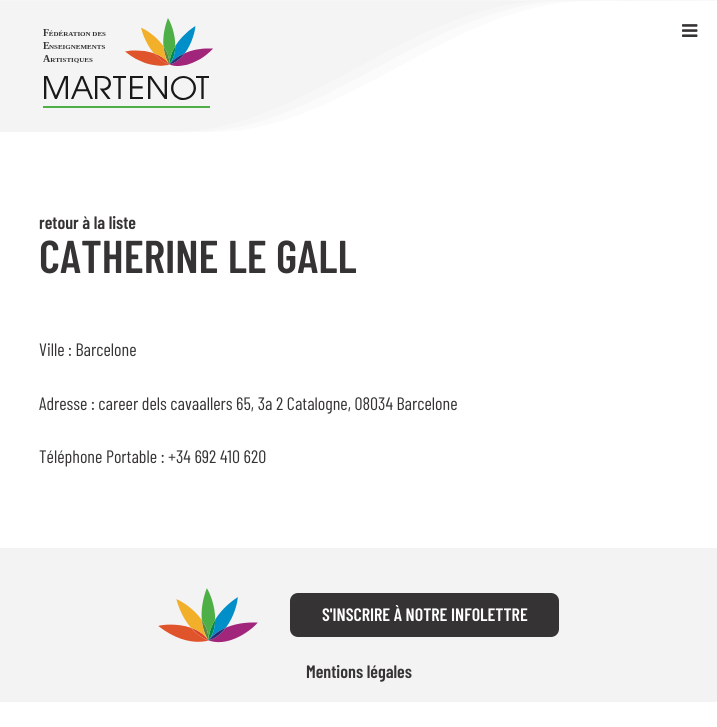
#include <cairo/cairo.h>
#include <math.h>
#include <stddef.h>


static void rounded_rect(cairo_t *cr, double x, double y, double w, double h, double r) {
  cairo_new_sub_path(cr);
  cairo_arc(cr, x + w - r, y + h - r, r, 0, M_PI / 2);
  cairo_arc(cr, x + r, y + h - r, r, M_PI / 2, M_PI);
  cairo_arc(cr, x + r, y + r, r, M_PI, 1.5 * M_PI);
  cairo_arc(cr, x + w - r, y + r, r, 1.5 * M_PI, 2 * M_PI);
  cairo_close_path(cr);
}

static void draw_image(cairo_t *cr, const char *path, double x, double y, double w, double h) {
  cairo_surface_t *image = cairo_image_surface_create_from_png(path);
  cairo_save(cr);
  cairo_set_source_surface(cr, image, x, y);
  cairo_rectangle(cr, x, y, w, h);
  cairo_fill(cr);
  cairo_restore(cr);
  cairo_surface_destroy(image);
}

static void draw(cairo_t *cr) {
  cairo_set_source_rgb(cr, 1, 1, 1);
  cairo_paint(cr);
  cairo_set_source_rgb(cr, 251 / 255.0, 251 / 255.0, 251 / 255.0);
  cairo_set_fill_rule(cr, CAIRO_FILL_RULE_EVEN_ODD);
  cairo_new_path(cr);
  cairo_move_to(cr, 0, 132);
  cairo_line_to(cr, 173, 132);
  cairo_curve_to(cr, 304, 132, 413, 1, 549, 1);
  cairo_line_to(cr, 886, 0);
  cairo_line_to(cr, 0, 0);
  cairo_close_path(cr);
  cairo_fill(cr);
  cairo_set_source_rgba(cr, 216 / 255.0, 216 / 255.0, 216 / 255.0, 0.1);
  cairo_new_path(cr);
  cairo_move_to(cr, 0, 132);
  cairo_line_to(cr, 193, 132);
  cairo_curve_to(cr, 324, 132, 433, 1, 569, 1);
  cairo_line_to(cr, 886, 0);
  cairo_line_to(cr, 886, 1);
  cairo_line_to(cr, 0, 1);
  cairo_close_path(cr);
  cairo_fill(cr);
  cairo_new_path(cr);
  cairo_move_to(cr, 0, 132);
  cairo_line_to(cr, 213, 132);
  cairo_curve_to(cr, 344, 132, 453, 1, 589, 1);
  cairo_line_to(cr, 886, 0);
  cairo_line_to(cr, 0, 0);
  cairo_close_path(cr);
  cairo_fill(cr);
  draw_image(cr, "images/1.png", 43, 18, 170, 90);
  draw_image(cr, "images/2.png", 682, 24, 16, 13);
  cairo_set_source_rgb(cr, 243 / 255.0, 243 / 255.0, 243 / 255.0);
  cairo_rectangle(cr, 0, 548, 717, 154);
  cairo_fill(cr);
  draw_image(cr, "images/3.png", 158, 588, 100, 55);
  cairo_set_source_rgb(cr, 53 / 255.0, 51 / 255.0, 52 / 255.0);
  rounded_rect(cr, 290, 593, 269, 44, 8);
  cairo_fill(cr);
  cairo_select_font_face(cr, "Barlow Condensed SemiBold", CAIRO_FONT_SLANT_NORMAL, CAIRO_FONT_WEIGHT_NORMAL);
  cairo_set_font_size(cr, 18);
  cairo_move_to(cr, 39, 229);
  cairo_show_text(cr, "retour à la liste");
  cairo_set_font_size(cr, 46);
  cairo_move_to(cr, 39, 273);
  cairo_show_text(cr, "CATHERINE LE GALL");
  cairo_select_font_face(cr, "Barlow Condensed", CAIRO_FONT_SLANT_NORMAL, CAIRO_FONT_WEIGHT_NORMAL);
  cairo_set_font_size(cr, 18);
  cairo_move_to(cr, 39, 356);
  cairo_show_text(cr, "Ville : Barcelone");
  cairo_move_to(cr, 39, 410);
  cairo_show_text(cr, "Adresse : career dels cavaallers 65, 3a 2 Catalogne, 08034 Barcelone");
  cairo_move_to(cr, 39, 463);
  cairo_show_text(cr, "Téléphone Portable : +34 692 410 620");
  cairo_select_font_face(cr, "Barlow Condensed SemiBold", CAIRO_FONT_SLANT_NORMAL, CAIRO_FONT_WEIGHT_NORMAL);
  cairo_set_source_rgb(cr, 1, 1, 1);
  cairo_move_to(cr, 322, 621);
  cairo_show_text(cr, "S'INSCRIRE À NOTRE INFOLETTRE");
  cairo_set_source_rgb(cr, 53 / 255.0, 51 / 255.0, 52 / 255.0);
  cairo_move_to(cr, 306, 678);
  cairo_show_text(cr, "Mentions légales");
}

int main(void) {
  cairo_surface_t *surface = cairo_image_surface_create(CAIRO_FORMAT_RGB24, 717, 727);
  cairo_t *cr = cairo_create(surface);
  cairo_font_options_t *options = cairo_font_options_create();
  cairo_font_options_set_hint_metrics(options, CAIRO_HINT_METRICS_OFF);
  cairo_font_options_set_hint_style(options, CAIRO_HINT_STYLE_NONE);
  cairo_set_font_options(cr, options);
  cairo_set_miter_limit(cr, 4);
  draw(cr);
  cairo_surface_write_to_png(surface, "out.png");
  cairo_font_options_destroy(options);
  cairo_destroy(cr);
  cairo_surface_destroy(surface);
  return 0;
}
